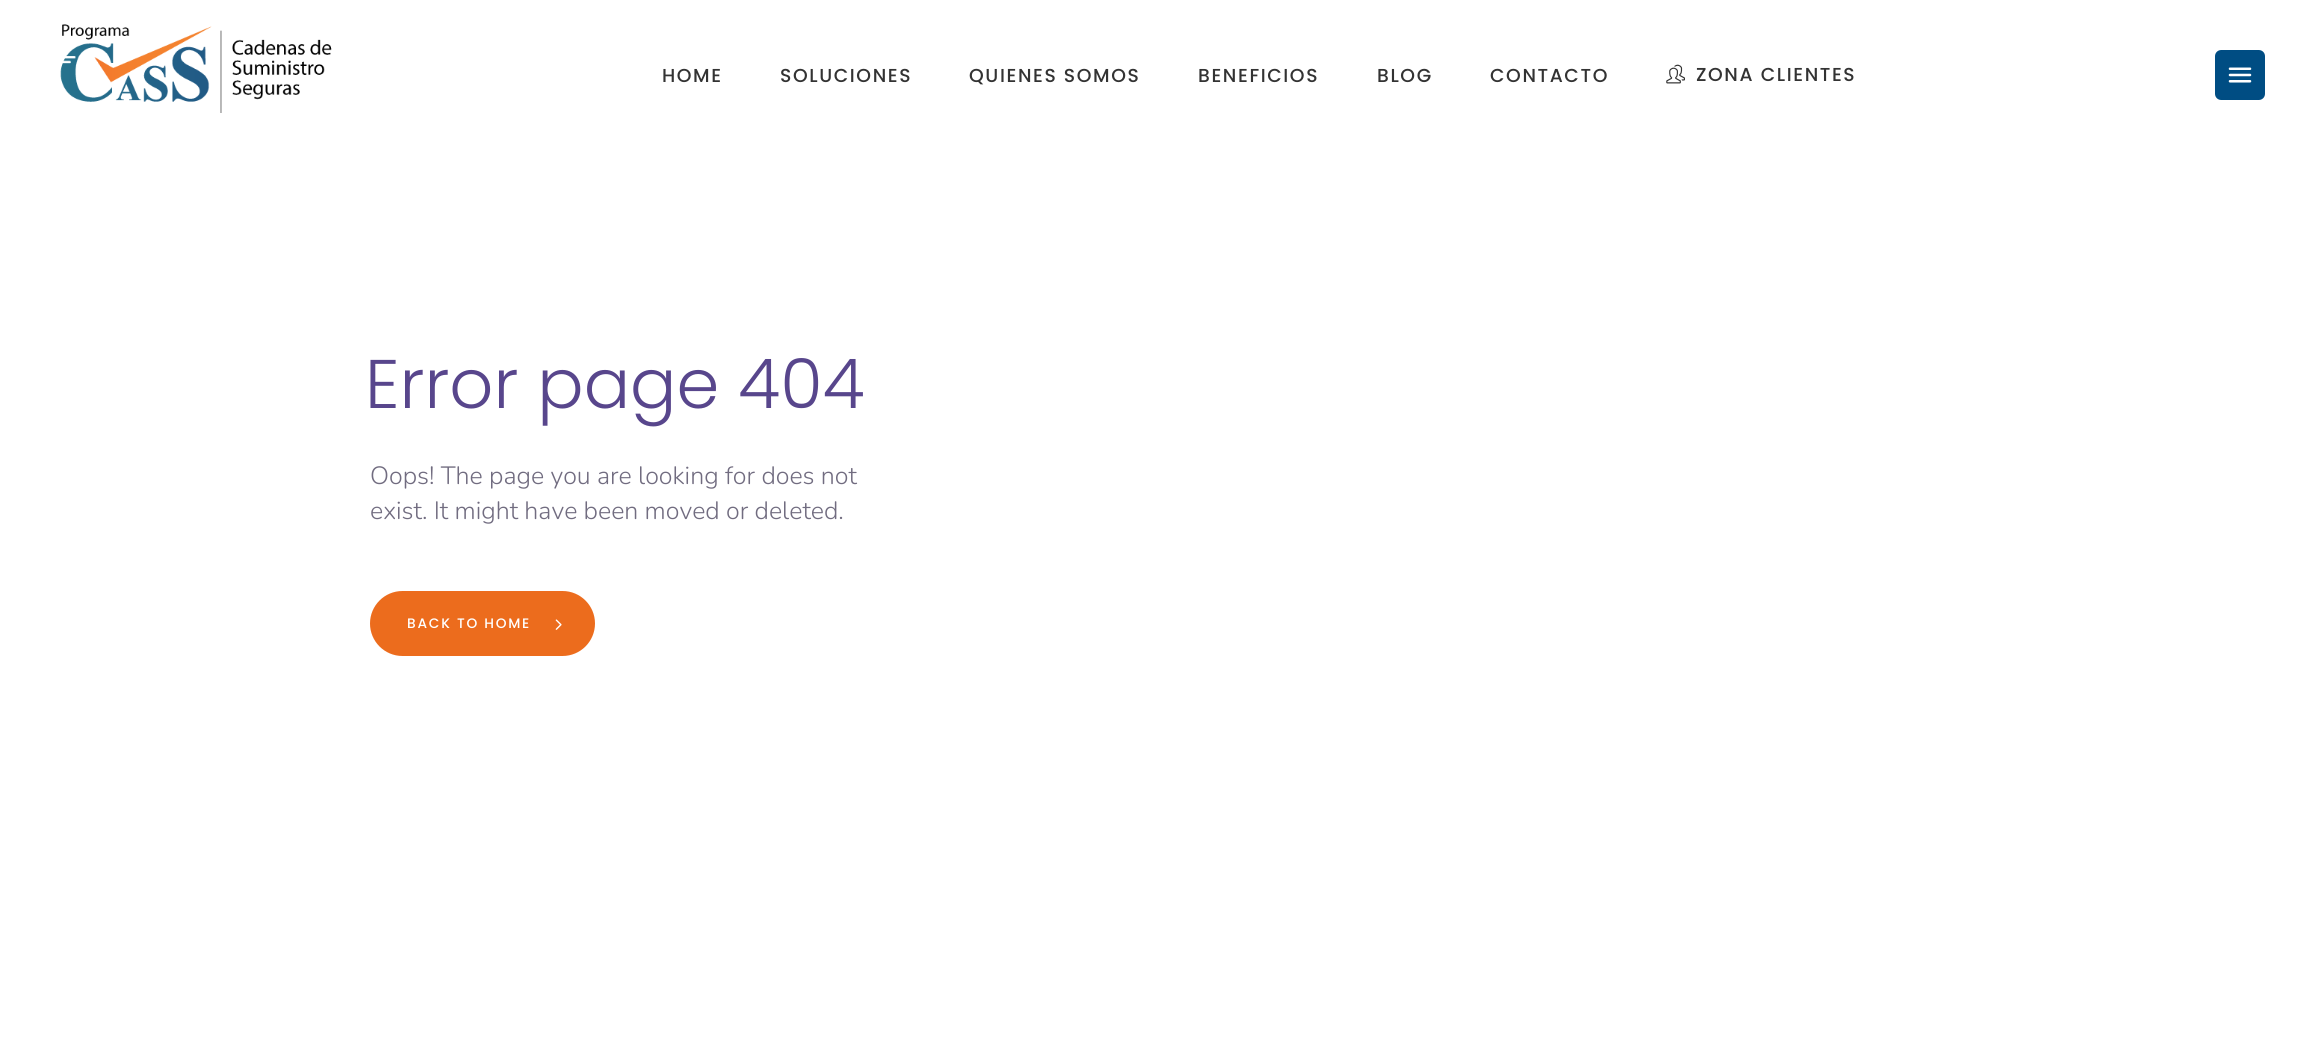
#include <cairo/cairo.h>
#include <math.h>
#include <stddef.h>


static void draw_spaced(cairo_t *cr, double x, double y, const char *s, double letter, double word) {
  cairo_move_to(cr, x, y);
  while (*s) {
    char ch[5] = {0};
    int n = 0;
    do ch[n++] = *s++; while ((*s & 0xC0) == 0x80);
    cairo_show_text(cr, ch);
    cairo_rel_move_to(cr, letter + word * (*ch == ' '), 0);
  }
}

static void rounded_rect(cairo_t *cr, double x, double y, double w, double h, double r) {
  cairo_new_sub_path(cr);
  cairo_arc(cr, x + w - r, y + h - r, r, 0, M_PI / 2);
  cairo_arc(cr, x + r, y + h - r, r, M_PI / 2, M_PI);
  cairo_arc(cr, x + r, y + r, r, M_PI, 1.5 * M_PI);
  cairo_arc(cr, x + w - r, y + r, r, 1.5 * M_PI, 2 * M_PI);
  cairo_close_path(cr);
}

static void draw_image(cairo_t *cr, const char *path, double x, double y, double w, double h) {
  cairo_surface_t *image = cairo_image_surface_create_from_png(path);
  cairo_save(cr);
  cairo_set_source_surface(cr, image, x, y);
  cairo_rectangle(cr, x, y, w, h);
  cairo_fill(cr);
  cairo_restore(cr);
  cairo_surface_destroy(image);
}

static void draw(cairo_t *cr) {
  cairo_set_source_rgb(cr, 1, 1, 1);
  cairo_paint(cr);
  draw_image(cr, "images/1.png", 60, 24, 272, 89);
  draw_image(cr, "images/2.png", 1666, 64, 19, 20);
  draw_image(cr, "images/3.png", 2215, 50, 50, 50);
  cairo_set_source_rgb(cr, 236 / 255.0, 108 / 255.0, 29 / 255.0);
  rounded_rect(cr, 370, 591, 225, 65, 32.5);
  cairo_fill(cr);
  draw_image(cr, "images/4.png", 555, 619, 7, 11);
  cairo_select_font_face(cr, "Poppins Medium", CAIRO_FONT_SLANT_NORMAL, CAIRO_FONT_WEIGHT_NORMAL);
  cairo_set_font_size(cr, 18.75);
  cairo_set_source_rgb(cr, 51 / 255.0, 51 / 255.0, 51 / 255.0);
  draw_spaced(cr, 662, 82, "HOME", 1.6, 0);
  draw_spaced(cr, 780, 82, "SOLUCIONES", 1.6, 0);
  draw_spaced(cr, 969, 82, "QUIENES SOMOS", 1.6, 0);
  draw_spaced(cr, 1198, 82, "BENEFICIOS", 1.6, 0);
  draw_spaced(cr, 1377, 82, "BLOG", 1.6, 0);
  draw_spaced(cr, 1490, 82, "CONTACTO", 1.6, 0);
  draw_spaced(cr, 1696, 81, "ZONA CLIENTES", 1.6, 0);
  cairo_select_font_face(cr, "Poppins Light", CAIRO_FONT_SLANT_NORMAL, CAIRO_FONT_WEIGHT_NORMAL);
  cairo_set_font_size(cr, 68.75);
  cairo_set_source_rgb(cr, 88 / 255.0, 70 / 255.0, 140 / 255.0);
  cairo_move_to(cr, 365, 408);
  cairo_show_text(cr, "Error page 404");
  cairo_select_font_face(cr, "Nunito Light", CAIRO_FONT_SLANT_NORMAL, CAIRO_FONT_WEIGHT_NORMAL);
  cairo_set_font_size(cr, 25);
  cairo_set_source_rgb(cr, 113 / 255.0, 108 / 255.0, 128 / 255.0);
  cairo_move_to(cr, 370, 484);
  cairo_show_text(cr, "Oops! The page you are looking for does not");
  cairo_move_to(cr, 370, 519);
  cairo_show_text(cr, "exist. It might have been moved or deleted.");
  cairo_select_font_face(cr, "Poppins Medium", CAIRO_FONT_SLANT_NORMAL, CAIRO_FONT_WEIGHT_NORMAL);
  cairo_set_font_size(cr, 13.75);
  cairo_set_source_rgb(cr, 1, 1, 1);
  draw_spaced(cr, 407, 628, "BACK TO HOME", 1.75, 0);
}

int main(void) {
  cairo_surface_t *surface = cairo_image_surface_create(CAIRO_FORMAT_RGB24, 2315, 1039);
  cairo_t *cr = cairo_create(surface);
  cairo_font_options_t *options = cairo_font_options_create();
  cairo_font_options_set_hint_metrics(options, CAIRO_HINT_METRICS_OFF);
  cairo_font_options_set_hint_style(options, CAIRO_HINT_STYLE_NONE);
  cairo_set_font_options(cr, options);
  cairo_set_miter_limit(cr, 4);
  draw(cr);
  cairo_surface_write_to_png(surface, "out.png");
  cairo_font_options_destroy(options);
  cairo_destroy(cr);
  cairo_surface_destroy(surface);
  return 0;
}
